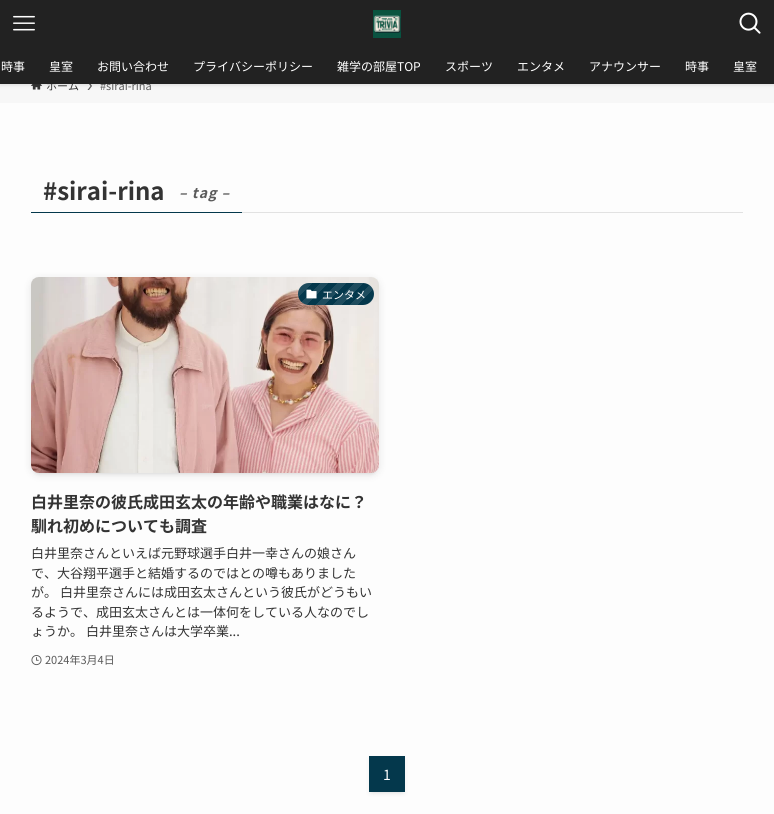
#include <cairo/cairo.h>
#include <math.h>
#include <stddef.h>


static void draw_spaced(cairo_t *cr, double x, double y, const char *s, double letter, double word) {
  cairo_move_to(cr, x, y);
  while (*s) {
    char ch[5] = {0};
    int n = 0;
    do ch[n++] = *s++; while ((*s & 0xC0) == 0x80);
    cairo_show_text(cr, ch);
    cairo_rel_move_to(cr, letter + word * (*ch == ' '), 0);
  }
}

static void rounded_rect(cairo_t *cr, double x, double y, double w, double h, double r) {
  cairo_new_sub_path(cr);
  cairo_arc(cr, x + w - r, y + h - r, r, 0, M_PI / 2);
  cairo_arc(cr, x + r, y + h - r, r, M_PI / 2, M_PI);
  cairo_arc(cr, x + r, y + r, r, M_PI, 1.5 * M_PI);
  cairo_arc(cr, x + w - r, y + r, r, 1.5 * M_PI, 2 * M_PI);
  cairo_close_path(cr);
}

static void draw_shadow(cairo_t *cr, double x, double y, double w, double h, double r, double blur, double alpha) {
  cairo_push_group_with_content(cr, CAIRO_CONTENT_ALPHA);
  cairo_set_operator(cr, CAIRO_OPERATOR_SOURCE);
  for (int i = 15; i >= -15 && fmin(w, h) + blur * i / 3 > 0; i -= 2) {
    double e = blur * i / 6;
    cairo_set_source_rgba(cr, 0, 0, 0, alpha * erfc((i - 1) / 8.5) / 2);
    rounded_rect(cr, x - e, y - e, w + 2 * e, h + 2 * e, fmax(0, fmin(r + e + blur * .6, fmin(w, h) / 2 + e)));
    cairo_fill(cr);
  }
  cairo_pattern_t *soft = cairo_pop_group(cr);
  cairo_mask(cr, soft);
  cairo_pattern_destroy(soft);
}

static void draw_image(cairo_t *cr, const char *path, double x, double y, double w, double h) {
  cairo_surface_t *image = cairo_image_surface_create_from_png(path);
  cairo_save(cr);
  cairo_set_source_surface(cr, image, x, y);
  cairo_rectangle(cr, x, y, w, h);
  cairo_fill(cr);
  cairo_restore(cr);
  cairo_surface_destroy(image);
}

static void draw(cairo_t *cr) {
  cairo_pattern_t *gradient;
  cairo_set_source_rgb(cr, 253 / 255.0, 253 / 255.0, 253 / 255.0);
  cairo_paint(cr);
  cairo_set_source_rgb(cr, 247 / 255.0, 247 / 255.0, 247 / 255.0);
  cairo_rectangle(cr, 0, 84, 774, 19);
  cairo_fill(cr);
  draw_image(cr, "images/4.png", 31, 84, 11, 6);
  cairo_set_source_rgb(cr, 90 / 255.0, 90 / 255.0, 90 / 255.0);
  cairo_new_path(cr);
  cairo_move_to(cr, 89, 81.5);
  cairo_line_to(cr, 87.5, 82);
  cairo_line_to(cr, 90.5, 86);
  cairo_line_to(cr, 87.5, 90);
  cairo_line_to(cr, 89, 90);
  cairo_line_to(cr, 92, 86);
  cairo_close_path(cr);
  cairo_fill(cr);
  cairo_set_source_rgb(cr, 0, 0, 0);
  draw_shadow(cr, 0, 1, 774, 84, 0, 2, 0.12);
  cairo_set_source_rgb(cr, 226 / 255.0, 226 / 255.0, 226 / 255.0);
  cairo_rectangle(cr, 242, 212, 501, 1);
  cairo_fill(cr);
  cairo_set_source_rgb(cr, 4 / 255.0, 56 / 255.0, 76 / 255.0);
  cairo_rectangle(cr, 31, 212, 211, 1);
  cairo_fill(cr);
  cairo_set_source_rgb(cr, 0, 0, 0);
  draw_shadow(cr, 35, 285, 340, 188, 4, 2, 0.1);
  draw_shadow(cr, 31, 279, 348, 196, 8, 4, 0.1);
  draw_image(cr, "images/5.png", 31, 277, 348, 196);
  cairo_set_source_rgb(cr, 4 / 255.0, 56 / 255.0, 76 / 255.0);
  rounded_rect(cr, 298, 283, 76, 22, 11);
  cairo_fill(cr);
  gradient = cairo_pattern_create_linear(361, 319, 310, 268);
  cairo_pattern_add_color_stop_rgba(gradient, 0, 1, 1, 1, 0.1);
  cairo_pattern_add_color_stop_rgba(gradient, 0.08, 1, 1, 1, 0.1);
  cairo_pattern_add_color_stop_rgba(gradient, 0.08, 1, 1, 1, 0);
  cairo_pattern_add_color_stop_rgba(gradient, 0.17, 1, 1, 1, 0);
  cairo_pattern_add_color_stop_rgba(gradient, 0.17, 1, 1, 1, 0.1);
  cairo_pattern_add_color_stop_rgba(gradient, 0.25, 1, 1, 1, 0.1);
  cairo_pattern_add_color_stop_rgba(gradient, 0.25, 1, 1, 1, 0);
  cairo_pattern_add_color_stop_rgba(gradient, 0.33, 1, 1, 1, 0);
  cairo_pattern_add_color_stop_rgba(gradient, 0.33, 1, 1, 1, 0.1);
  cairo_pattern_add_color_stop_rgba(gradient, 0.42, 1, 1, 1, 0.1);
  cairo_pattern_add_color_stop_rgba(gradient, 0.42, 1, 1, 1, 0);
  cairo_pattern_add_color_stop_rgba(gradient, 0.5, 1, 1, 1, 0);
  cairo_pattern_add_color_stop_rgba(gradient, 0.5, 1, 1, 1, 0.1);
  cairo_pattern_add_color_stop_rgba(gradient, 0.58, 1, 1, 1, 0.1);
  cairo_pattern_add_color_stop_rgba(gradient, 0.58, 1, 1, 1, 0);
  cairo_pattern_add_color_stop_rgba(gradient, 0.67, 1, 1, 1, 0);
  cairo_pattern_add_color_stop_rgba(gradient, 0.67, 1, 1, 1, 0.1);
  cairo_pattern_add_color_stop_rgba(gradient, 0.75, 1, 1, 1, 0.1);
  cairo_pattern_add_color_stop_rgba(gradient, 0.75, 1, 1, 1, 0);
  cairo_pattern_add_color_stop_rgba(gradient, 0.83, 1, 1, 1, 0);
  cairo_pattern_add_color_stop_rgba(gradient, 0.83, 1, 1, 1, 0.1);
  cairo_pattern_add_color_stop_rgba(gradient, 0.92, 1, 1, 1, 0.1);
  cairo_pattern_add_color_stop_rgba(gradient, 0.92, 1, 1, 1, 0);
  cairo_pattern_add_color_stop_rgba(gradient, 1, 0, 0, 0, 0);
  cairo_set_source(cr, gradient);
  cairo_pattern_destroy(gradient);
  rounded_rect(cr, 298, 283, 76, 22, 11);
  cairo_fill(cr);
  draw_image(cr, "images/6.png", 306, 289, 11, 10);
  draw_image(cr, "images/7.png", 31, 655, 11, 11);
  cairo_set_source_rgb(cr, 0, 0, 0);
  draw_shadow(cr, 373, 764, 28, 28, 0, 2, 0.1);
  draw_shadow(cr, 369, 758, 36, 36, 0, 2, 0.05);
  cairo_set_source_rgb(cr, 4 / 255.0, 56 / 255.0, 76 / 255.0);
  cairo_rectangle(cr, 369, 756, 36, 36);
  cairo_fill(cr);
  cairo_select_font_face(cr, "Noto Sans JP", CAIRO_FONT_SLANT_NORMAL, CAIRO_FONT_WEIGHT_NORMAL);
  cairo_set_font_size(cr, 11);
  cairo_set_source_rgb(cr, 51 / 255.0, 51 / 255.0, 51 / 255.0);
  cairo_move_to(cr, 46, 90);
  cairo_show_text(cr, "ホーム");
  cairo_set_source_rgb(cr, 90 / 255.0, 90 / 255.0, 90 / 255.0);
  cairo_move_to(cr, 100, 90);
  cairo_show_text(cr, "#sirai-rina");
  cairo_set_source_rgb(cr, 34 / 255.0, 34 / 255.0, 34 / 255.0);
  cairo_rectangle(cr, 0, 0, 774, 84);
  cairo_fill(cr);
  cairo_set_font_size(cr, 12);
  cairo_set_source_rgb(cr, 1, 1, 1);
  cairo_move_to(cr, 733, 71);
  cairo_show_text(cr, "皇室");
  cairo_move_to(cr, 685, 71);
  cairo_show_text(cr, "時事");
  cairo_move_to(cr, 589, 71);
  cairo_show_text(cr, "アナウンサー");
  cairo_move_to(cr, 517, 71);
  cairo_show_text(cr, "エンタメ");
  cairo_move_to(cr, 445, 71);
  cairo_show_text(cr, "スポーツ");
  cairo_move_to(cr, 337, 71);
  cairo_show_text(cr, "雑学の部屋TOP");
  cairo_move_to(cr, 193, 71);
  cairo_show_text(cr, "プライバシーポリシー");
  cairo_move_to(cr, 97, 71);
  cairo_show_text(cr, "お問い合わせ");
  cairo_move_to(cr, 49, 71);
  cairo_show_text(cr, "皇室");
  cairo_move_to(cr, 1, 71);
  cairo_show_text(cr, "時事");
  draw_image(cr, "images/1.png", 13, 15, 22, 16);
  draw_image(cr, "images/3.png", 739, 12, 22, 22);
  draw_image(cr, "images/2.png", 373, 10, 28, 28);
  cairo_select_font_face(cr, "Noto Sans JP", CAIRO_FONT_SLANT_NORMAL, CAIRO_FONT_WEIGHT_BOLD);
  cairo_set_font_size(cr, 24);
  cairo_set_source_rgb(cr, 51 / 255.0, 51 / 255.0, 51 / 255.0);
  cairo_move_to(cr, 43, 200);
  cairo_show_text(cr, "#sirai-rina");
  cairo_select_font_face(cr, "Noto Sans JP", CAIRO_FONT_SLANT_ITALIC, CAIRO_FONT_WEIGHT_BOLD);
  cairo_set_font_size(cr, 14);
  cairo_set_source_rgb(cr, 90 / 255.0, 90 / 255.0, 90 / 255.0);
  draw_spaced(cr, 179, 198, "– tag –", 1, 0);
  cairo_select_font_face(cr, "Noto Sans JP", CAIRO_FONT_SLANT_NORMAL, CAIRO_FONT_WEIGHT_NORMAL);
  cairo_set_font_size(cr, 11);
  cairo_set_source_rgb(cr, 1, 1, 1);
  cairo_move_to(cr, 322, 299);
  cairo_show_text(cr, "エンタメ");
  cairo_select_font_face(cr, "Noto Sans JP", CAIRO_FONT_SLANT_NORMAL, CAIRO_FONT_WEIGHT_BOLD);
  cairo_set_font_size(cr, 16);
  cairo_set_source_rgb(cr, 51 / 255.0, 51 / 255.0, 51 / 255.0);
  cairo_move_to(cr, 31, 508);
  cairo_show_text(cr, "白井里奈の彼氏成田玄太の年齢や職業はなに？");
  cairo_move_to(cr, 31, 532);
  cairo_show_text(cr, "馴れ初めについても調査");
  cairo_select_font_face(cr, "Noto Sans JP", CAIRO_FONT_SLANT_NORMAL, CAIRO_FONT_WEIGHT_NORMAL);
  cairo_set_font_size(cr, 13);
  cairo_move_to(cr, 31, 558);
  cairo_show_text(cr, "白井里奈さんといえば元野球選手白井一幸さんの娘さん");
  cairo_move_to(cr, 31, 578);
  cairo_show_text(cr, "で、大谷翔平選手と結婚するのではとの噂もありました");
  cairo_move_to(cr, 31, 597);
  cairo_show_text(cr, "が。 白井里奈さんには成田玄太さんという彼氏がどうもい");
  cairo_move_to(cr, 31, 617);
  cairo_show_text(cr, "るようで、成田玄太さんとは一体何をしている人なのでし");
  cairo_move_to(cr, 31, 636);
  cairo_show_text(cr, "ょうか。 白井里奈さんは大学卒業...");
  cairo_set_font_size(cr, 11);
  cairo_set_source_rgb(cr, 90 / 255.0, 90 / 255.0, 90 / 255.0);
  cairo_move_to(cr, 45, 664);
  cairo_show_text(cr, "2024年3月4日");
  cairo_set_font_size(cr, 14);
  cairo_set_source_rgb(cr, 1, 1, 1);
  cairo_move_to(cr, 383, 780);
  cairo_show_text(cr, "1");
}

int main(void) {
  cairo_surface_t *surface = cairo_image_surface_create(CAIRO_FORMAT_RGB24, 774, 814);
  cairo_t *cr = cairo_create(surface);
  cairo_font_options_t *options = cairo_font_options_create();
  cairo_font_options_set_hint_metrics(options, CAIRO_HINT_METRICS_OFF);
  cairo_font_options_set_hint_style(options, CAIRO_HINT_STYLE_NONE);
  cairo_set_font_options(cr, options);
  cairo_set_miter_limit(cr, 4);
  draw(cr);
  cairo_surface_write_to_png(surface, "out.png");
  cairo_font_options_destroy(options);
  cairo_destroy(cr);
  cairo_surface_destroy(surface);
  return 0;
}
